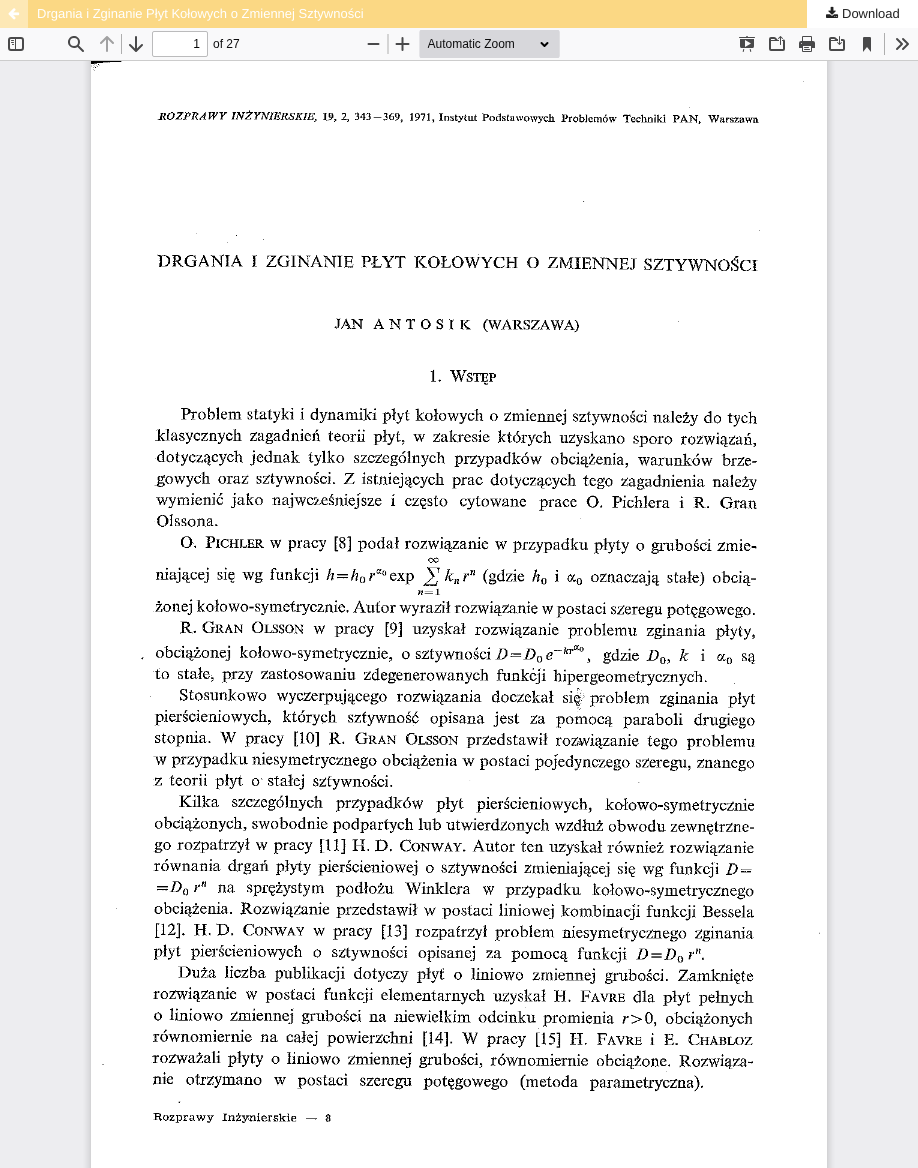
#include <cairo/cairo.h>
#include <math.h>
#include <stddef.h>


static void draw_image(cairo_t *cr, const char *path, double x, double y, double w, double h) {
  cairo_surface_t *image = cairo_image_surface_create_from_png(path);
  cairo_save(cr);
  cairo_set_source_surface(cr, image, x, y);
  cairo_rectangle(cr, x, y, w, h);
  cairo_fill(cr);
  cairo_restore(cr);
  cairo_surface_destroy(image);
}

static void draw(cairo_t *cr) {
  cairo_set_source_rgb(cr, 1, 1, 1);
  cairo_paint(cr);
  cairo_set_source_rgb(cr, 251 / 255.0, 216 / 255.0, 132 / 255.0);
  cairo_rectangle(cr, 28, 0, 779, 28);
  cairo_fill(cr);
  cairo_set_source_rgb(cr, 253 / 255.0, 232 / 255.0, 181 / 255.0);
  cairo_rectangle(cr, 0, 0, 28, 28);
  cairo_fill(cr);
  draw_image(cr, "images/1.png", 8, 8, 12, 12);
  draw_image(cr, "images/2.png", 826, 6, 13, 12);
  draw_image(cr, "images/3.png", 0, 28, 918, 1140);
  cairo_select_font_face(cr, "Liberation Sans", CAIRO_FONT_SLANT_NORMAL, CAIRO_FONT_WEIGHT_NORMAL);
  cairo_set_font_size(cr, 13);
  cairo_set_source_rgb(cr, 1, 1, 1);
  cairo_move_to(cr, 37, 18);
  cairo_show_text(cr, "Drgania i Zginanie Płyt Kołowych o Zmiennej Sztywności");
  cairo_set_source_rgb(cr, 33 / 255.0, 33 / 255.0, 33 / 255.0);
  cairo_move_to(cr, 842, 18);
  cairo_show_text(cr, "Download");
}

int main(void) {
  cairo_surface_t *surface = cairo_image_surface_create(CAIRO_FORMAT_RGB24, 918, 1168);
  cairo_t *cr = cairo_create(surface);
  cairo_font_options_t *options = cairo_font_options_create();
  cairo_font_options_set_hint_metrics(options, CAIRO_HINT_METRICS_OFF);
  cairo_font_options_set_hint_style(options, CAIRO_HINT_STYLE_NONE);
  cairo_set_font_options(cr, options);
  cairo_set_miter_limit(cr, 4);
  draw(cr);
  cairo_surface_write_to_png(surface, "out.png");
  cairo_font_options_destroy(options);
  cairo_destroy(cr);
  cairo_surface_destroy(surface);
  return 0;
}
